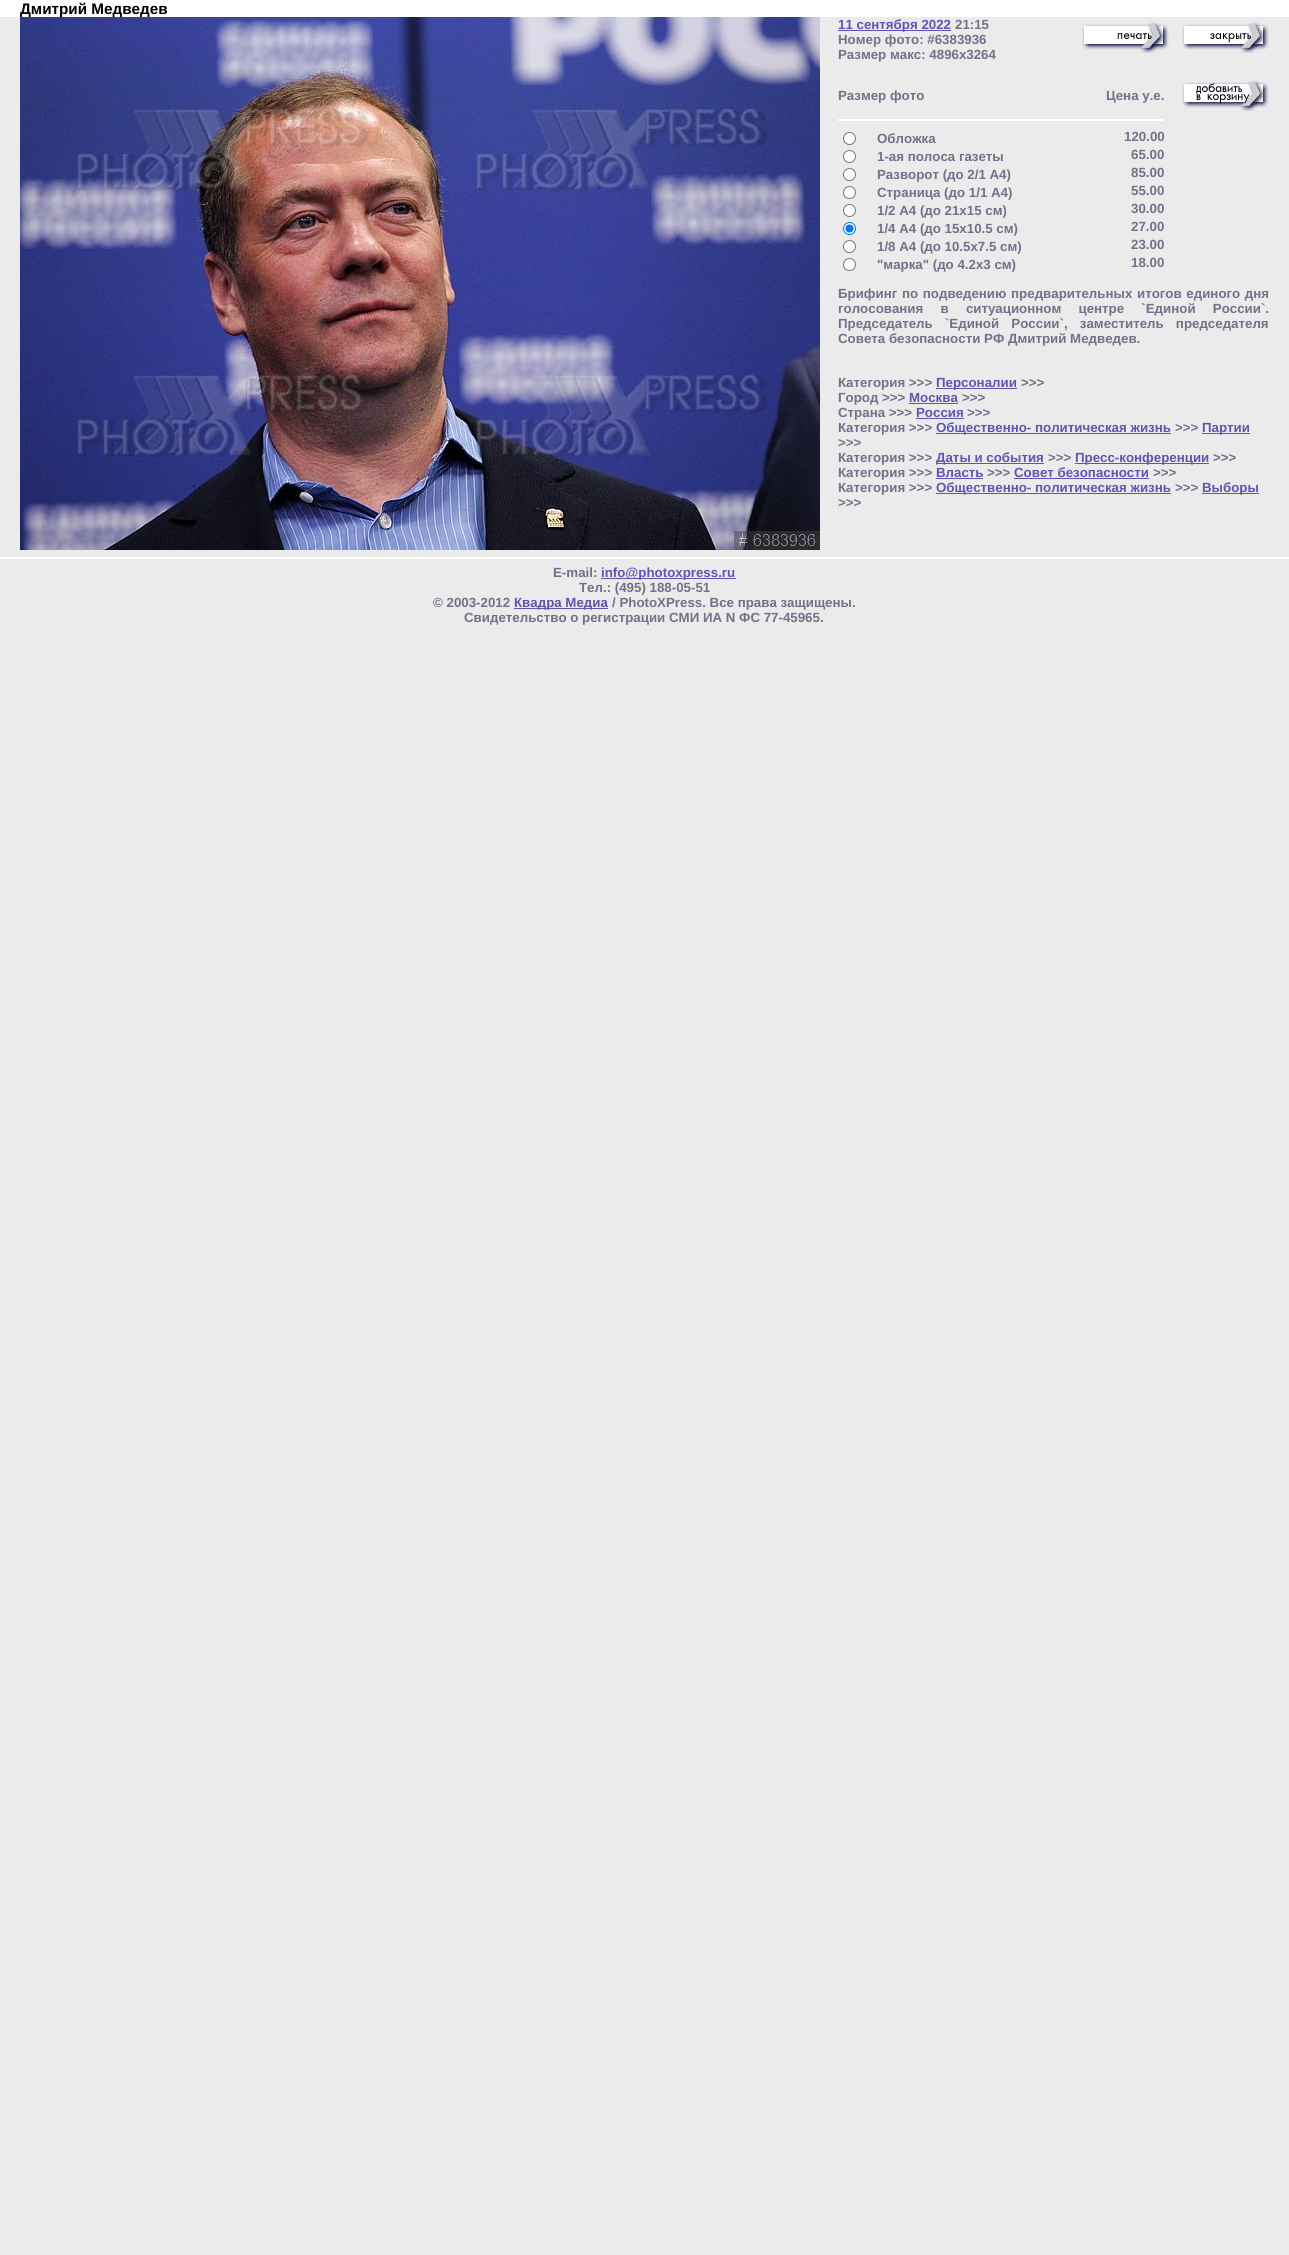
#include <cairo/cairo.h>
#include <math.h>
#include <stddef.h>


static void draw_spaced(cairo_t *cr, double x, double y, const char *s, double letter, double word) {
  cairo_move_to(cr, x, y);
  while (*s) {
    char ch[5] = {0};
    int n = 0;
    do ch[n++] = *s++; while ((*s & 0xC0) == 0x80);
    cairo_show_text(cr, ch);
    cairo_rel_move_to(cr, letter + word * (*ch == ' '), 0);
  }
}

static void draw_image(cairo_t *cr, const char *path, double x, double y, double w, double h) {
  cairo_surface_t *image = cairo_image_surface_create_from_png(path);
  cairo_save(cr);
  cairo_set_source_surface(cr, image, x, y);
  cairo_rectangle(cr, x, y, w, h);
  cairo_fill(cr);
  cairo_restore(cr);
  cairo_surface_destroy(image);
}

static void draw(cairo_t *cr) {
  cairo_set_source_rgb(cr, 235 / 255.0, 235 / 255.0, 235 / 255.0);
  cairo_paint(cr);
  cairo_set_source_rgb(cr, 1, 1, 1);
  cairo_rectangle(cr, 0, 0, 1289, 17);
  cairo_fill(cr);
  cairo_set_source_rgb(cr, 94 / 255.0, 84 / 255.0, 185 / 255.0);
  cairo_rectangle(cr, 838, 30, 113, 1);
  cairo_fill(cr);
  draw_image(cr, "images/2.png", 1082, 22, 87, 31);
  draw_image(cr, "images/3.png", 1182, 22, 87, 31);
  draw_image(cr, "images/4.png", 1182, 80, 87, 31);
  cairo_set_source_rgb(cr, 1, 1, 1);
  cairo_rectangle(cr, 838, 119, 326, 2);
  cairo_fill(cr);
  cairo_arc(cr, 849.5, 138.5, 6, 0, 2 * M_PI);
  cairo_fill_preserve(cr);
  cairo_set_source_rgb(cr, 118 / 255.0, 118 / 255.0, 118 / 255.0);
  cairo_set_line_width(cr, 1);
  cairo_stroke(cr);
  cairo_set_source_rgb(cr, 1, 1, 1);
  cairo_arc(cr, 849.5, 156.5, 6, 0, 2 * M_PI);
  cairo_fill_preserve(cr);
  cairo_set_source_rgb(cr, 118 / 255.0, 118 / 255.0, 118 / 255.0);
  cairo_stroke(cr);
  cairo_set_source_rgb(cr, 1, 1, 1);
  cairo_arc(cr, 849.5, 174.5, 6, 0, 2 * M_PI);
  cairo_fill_preserve(cr);
  cairo_set_source_rgb(cr, 118 / 255.0, 118 / 255.0, 118 / 255.0);
  cairo_stroke(cr);
  cairo_set_source_rgb(cr, 1, 1, 1);
  cairo_arc(cr, 849.5, 192.5, 6, 0, 2 * M_PI);
  cairo_fill_preserve(cr);
  cairo_set_source_rgb(cr, 118 / 255.0, 118 / 255.0, 118 / 255.0);
  cairo_stroke(cr);
  cairo_set_source_rgb(cr, 1, 1, 1);
  cairo_arc(cr, 849.5, 210.5, 6, 0, 2 * M_PI);
  cairo_fill_preserve(cr);
  cairo_set_source_rgb(cr, 118 / 255.0, 118 / 255.0, 118 / 255.0);
  cairo_stroke(cr);
  cairo_set_source_rgb(cr, 1, 1, 1);
  cairo_arc(cr, 849.5, 228.5, 6, 0, 2 * M_PI);
  cairo_fill_preserve(cr);
  cairo_set_source_rgb(cr, 0, 117 / 255.0, 1);
  cairo_stroke(cr);
  cairo_arc(cr, 849.5, 228.5, 4, 0, 2 * M_PI);
  cairo_fill(cr);
  cairo_set_source_rgb(cr, 1, 1, 1);
  cairo_arc(cr, 849.5, 246.5, 6, 0, 2 * M_PI);
  cairo_fill_preserve(cr);
  cairo_set_source_rgb(cr, 118 / 255.0, 118 / 255.0, 118 / 255.0);
  cairo_stroke(cr);
  cairo_set_source_rgb(cr, 1, 1, 1);
  cairo_arc(cr, 849.5, 264.5, 6, 0, 2 * M_PI);
  cairo_fill_preserve(cr);
  cairo_set_source_rgb(cr, 118 / 255.0, 118 / 255.0, 118 / 255.0);
  cairo_stroke(cr);
  cairo_set_source_rgb(cr, 94 / 255.0, 84 / 255.0, 185 / 255.0);
  cairo_rectangle(cr, 936, 388, 81, 1);
  cairo_fill(cr);
  cairo_rectangle(cr, 909, 403, 49, 1);
  cairo_fill(cr);
  cairo_rectangle(cr, 916, 418, 48, 1);
  cairo_fill(cr);
  cairo_rectangle(cr, 936, 433, 235, 1);
  cairo_fill(cr);
  cairo_rectangle(cr, 1202, 433, 48, 1);
  cairo_fill(cr);
  cairo_rectangle(cr, 936, 463, 108, 1);
  cairo_fill(cr);
  cairo_rectangle(cr, 1075, 463, 134, 1);
  cairo_fill(cr);
  cairo_rectangle(cr, 936, 478, 47, 1);
  cairo_fill(cr);
  cairo_rectangle(cr, 1014, 478, 135, 1);
  cairo_fill(cr);
  cairo_rectangle(cr, 936, 493, 235, 1);
  cairo_fill(cr);
  cairo_rectangle(cr, 1202, 493, 57, 1);
  cairo_fill(cr);
  cairo_set_source_rgb(cr, 1, 1, 1);
  cairo_rectangle(cr, 0, 557, 1289, 2);
  cairo_fill(cr);
  cairo_set_source_rgb(cr, 94 / 255.0, 84 / 255.0, 185 / 255.0);
  cairo_rectangle(cr, 601, 578, 135, 1);
  cairo_fill(cr);
  cairo_rectangle(cr, 514, 608, 94, 1);
  cairo_fill(cr);
  cairo_select_font_face(cr, "Liberation Sans", CAIRO_FONT_SLANT_NORMAL, CAIRO_FONT_WEIGHT_BOLD);
  cairo_set_font_size(cr, 15.25);
  cairo_set_source_rgb(cr, 0, 0, 0);
  cairo_move_to(cr, 20, 14);
  cairo_show_text(cr, "Дмитрий Медведев");
  draw_image(cr, "images/1.png", 20, 17, 800, 533);
  cairo_set_font_size(cr, 13.3);
  cairo_set_source_rgb(cr, 94 / 255.0, 84 / 255.0, 185 / 255.0);
  cairo_move_to(cr, 838, 29);
  cairo_show_text(cr, "11 сентября 2022");
  cairo_set_source_rgb(cr, 115 / 255.0, 112 / 255.0, 137 / 255.0);
  cairo_move_to(cr, 955, 29);
  cairo_show_text(cr, "21:15");
  cairo_move_to(cr, 838, 44);
  cairo_show_text(cr, "Номер фото: #6383936");
  cairo_move_to(cr, 838, 59);
  cairo_show_text(cr, "Размер макс: 4896x3264");
  cairo_move_to(cr, 838, 100);
  cairo_show_text(cr, "Размер фото");
  cairo_move_to(cr, 1106, 100);
  cairo_show_text(cr, "Цена у.е.");
  cairo_move_to(cr, 877, 143);
  cairo_show_text(cr, "Обложка");
  cairo_move_to(cr, 1124, 141);
  cairo_show_text(cr, "120.00");
  cairo_move_to(cr, 877, 161);
  cairo_show_text(cr, "1-ая полоса газеты");
  cairo_move_to(cr, 1131, 159);
  cairo_show_text(cr, "65.00");
  cairo_move_to(cr, 877, 179);
  cairo_show_text(cr, "Разворот (до 2/1 A4)");
  cairo_move_to(cr, 1131, 177);
  cairo_show_text(cr, "85.00");
  cairo_move_to(cr, 877, 197);
  cairo_show_text(cr, "Страница (до 1/1 A4)");
  cairo_move_to(cr, 1131, 195);
  cairo_show_text(cr, "55.00");
  cairo_move_to(cr, 877, 215);
  cairo_show_text(cr, "1/2 A4 (до 21x15 см)");
  cairo_move_to(cr, 1131, 213);
  cairo_show_text(cr, "30.00");
  cairo_move_to(cr, 877, 233);
  cairo_show_text(cr, "1/4 A4 (до 15x10.5 см)");
  cairo_move_to(cr, 1131, 231);
  cairo_show_text(cr, "27.00");
  cairo_move_to(cr, 877, 251);
  cairo_show_text(cr, "1/8 A4 (до 10.5x7.5 см)");
  cairo_move_to(cr, 1131, 249);
  cairo_show_text(cr, "23.00");
  cairo_move_to(cr, 877, 269);
  cairo_show_text(cr, "\"марка\" (до 4.2x3 см)");
  cairo_move_to(cr, 1131, 267);
  cairo_show_text(cr, "18.00");
  draw_spaced(cr, 838, 298, "Брифинг по подведению предварительных итогов единого дня", 0, 1);
  draw_spaced(cr, 838, 313, "голосования в ситуационном центре `Единой России`.", 0, 13.5);
  draw_spaced(cr, 838, 328, "Председатель `Единой России`, заместитель председателя", 0, 8.5);
  cairo_move_to(cr, 838, 343);
  cairo_show_text(cr, "Совета безопасности РФ Дмитрий Медведев.");
  cairo_move_to(cr, 838, 387);
  cairo_show_text(cr, "Категория >>>");
  cairo_set_source_rgb(cr, 94 / 255.0, 84 / 255.0, 185 / 255.0);
  cairo_move_to(cr, 936, 387);
  cairo_show_text(cr, "Персоналии");
  cairo_set_source_rgb(cr, 115 / 255.0, 112 / 255.0, 137 / 255.0);
  cairo_move_to(cr, 1021, 387);
  cairo_show_text(cr, ">>>");
  cairo_move_to(cr, 838, 402);
  cairo_show_text(cr, "Город >>>");
  cairo_set_source_rgb(cr, 94 / 255.0, 84 / 255.0, 185 / 255.0);
  cairo_move_to(cr, 909, 402);
  cairo_show_text(cr, "Москва");
  cairo_set_source_rgb(cr, 115 / 255.0, 112 / 255.0, 137 / 255.0);
  cairo_move_to(cr, 962, 402);
  cairo_show_text(cr, ">>>");
  cairo_move_to(cr, 838, 417);
  cairo_show_text(cr, "Страна >>>");
  cairo_set_source_rgb(cr, 94 / 255.0, 84 / 255.0, 185 / 255.0);
  cairo_move_to(cr, 916, 417);
  cairo_show_text(cr, "Россия");
  cairo_set_source_rgb(cr, 115 / 255.0, 112 / 255.0, 137 / 255.0);
  cairo_move_to(cr, 967, 417);
  cairo_show_text(cr, ">>>");
  cairo_move_to(cr, 838, 432);
  cairo_show_text(cr, "Категория >>>");
  cairo_set_source_rgb(cr, 94 / 255.0, 84 / 255.0, 185 / 255.0);
  cairo_move_to(cr, 936, 432);
  cairo_show_text(cr, "Общественно- политическая жизнь");
  cairo_set_source_rgb(cr, 115 / 255.0, 112 / 255.0, 137 / 255.0);
  cairo_move_to(cr, 1175, 432);
  cairo_show_text(cr, ">>>");
  cairo_set_source_rgb(cr, 94 / 255.0, 84 / 255.0, 185 / 255.0);
  cairo_move_to(cr, 1202, 432);
  cairo_show_text(cr, "Партии");
  cairo_set_source_rgb(cr, 115 / 255.0, 112 / 255.0, 137 / 255.0);
  cairo_move_to(cr, 838, 447);
  cairo_show_text(cr, ">>>");
  cairo_move_to(cr, 838, 462);
  cairo_show_text(cr, "Категория >>>");
  cairo_set_source_rgb(cr, 94 / 255.0, 84 / 255.0, 185 / 255.0);
  cairo_move_to(cr, 936, 462);
  cairo_show_text(cr, "Даты и события");
  cairo_set_source_rgb(cr, 115 / 255.0, 112 / 255.0, 137 / 255.0);
  cairo_move_to(cr, 1048, 462);
  cairo_show_text(cr, ">>>");
  cairo_set_source_rgb(cr, 94 / 255.0, 84 / 255.0, 185 / 255.0);
  cairo_move_to(cr, 1075, 462);
  cairo_show_text(cr, "Пресс-конференции");
  cairo_set_source_rgb(cr, 115 / 255.0, 112 / 255.0, 137 / 255.0);
  cairo_move_to(cr, 1213, 462);
  cairo_show_text(cr, ">>>");
  cairo_move_to(cr, 838, 477);
  cairo_show_text(cr, "Категория >>>");
  cairo_set_source_rgb(cr, 94 / 255.0, 84 / 255.0, 185 / 255.0);
  cairo_move_to(cr, 936, 477);
  cairo_show_text(cr, "Власть");
  cairo_set_source_rgb(cr, 115 / 255.0, 112 / 255.0, 137 / 255.0);
  cairo_move_to(cr, 987, 477);
  cairo_show_text(cr, ">>>");
  cairo_set_source_rgb(cr, 94 / 255.0, 84 / 255.0, 185 / 255.0);
  cairo_move_to(cr, 1014, 477);
  cairo_show_text(cr, "Совет безопасности");
  cairo_set_source_rgb(cr, 115 / 255.0, 112 / 255.0, 137 / 255.0);
  cairo_move_to(cr, 1153, 477);
  cairo_show_text(cr, ">>>");
  cairo_move_to(cr, 838, 492);
  cairo_show_text(cr, "Категория >>>");
  cairo_set_source_rgb(cr, 94 / 255.0, 84 / 255.0, 185 / 255.0);
  cairo_move_to(cr, 936, 492);
  cairo_show_text(cr, "Общественно- политическая жизнь");
  cairo_set_source_rgb(cr, 115 / 255.0, 112 / 255.0, 137 / 255.0);
  cairo_move_to(cr, 1175, 492);
  cairo_show_text(cr, ">>>");
  cairo_set_source_rgb(cr, 94 / 255.0, 84 / 255.0, 185 / 255.0);
  cairo_move_to(cr, 1202, 492);
  cairo_show_text(cr, "Выборы");
  cairo_set_source_rgb(cr, 115 / 255.0, 112 / 255.0, 137 / 255.0);
  cairo_move_to(cr, 838, 507);
  cairo_show_text(cr, ">>>");
  cairo_move_to(cr, 553, 577);
  cairo_show_text(cr, "E-mail:");
  cairo_set_source_rgb(cr, 94 / 255.0, 84 / 255.0, 185 / 255.0);
  cairo_move_to(cr, 601, 577);
  cairo_show_text(cr, "info@photoxpress.ru");
  cairo_set_source_rgb(cr, 115 / 255.0, 112 / 255.0, 137 / 255.0);
  cairo_move_to(cr, 579, 592);
  cairo_show_text(cr, "Тел.: (495) 188-05-51");
  cairo_move_to(cr, 433, 607);
  cairo_show_text(cr, "© 2003-2012");
  cairo_set_source_rgb(cr, 94 / 255.0, 84 / 255.0, 185 / 255.0);
  cairo_move_to(cr, 514, 607);
  cairo_show_text(cr, "Квадра Медиа");
  cairo_set_source_rgb(cr, 115 / 255.0, 112 / 255.0, 137 / 255.0);
  cairo_move_to(cr, 612, 607);
  cairo_show_text(cr, "/ PhotoXPress. Все права защищены.");
  cairo_move_to(cr, 464, 622);
  cairo_show_text(cr, "Свидетельство о регистрации СМИ ИА N ФС 77-45965.");
}

int main(void) {
  cairo_surface_t *surface = cairo_image_surface_create(CAIRO_FORMAT_RGB24, 1289, 2255);
  cairo_t *cr = cairo_create(surface);
  cairo_font_options_t *options = cairo_font_options_create();
  cairo_font_options_set_hint_metrics(options, CAIRO_HINT_METRICS_OFF);
  cairo_font_options_set_hint_style(options, CAIRO_HINT_STYLE_NONE);
  cairo_set_font_options(cr, options);
  cairo_set_miter_limit(cr, 4);
  draw(cr);
  cairo_surface_write_to_png(surface, "out.png");
  cairo_font_options_destroy(options);
  cairo_destroy(cr);
  cairo_surface_destroy(surface);
  return 0;
}
